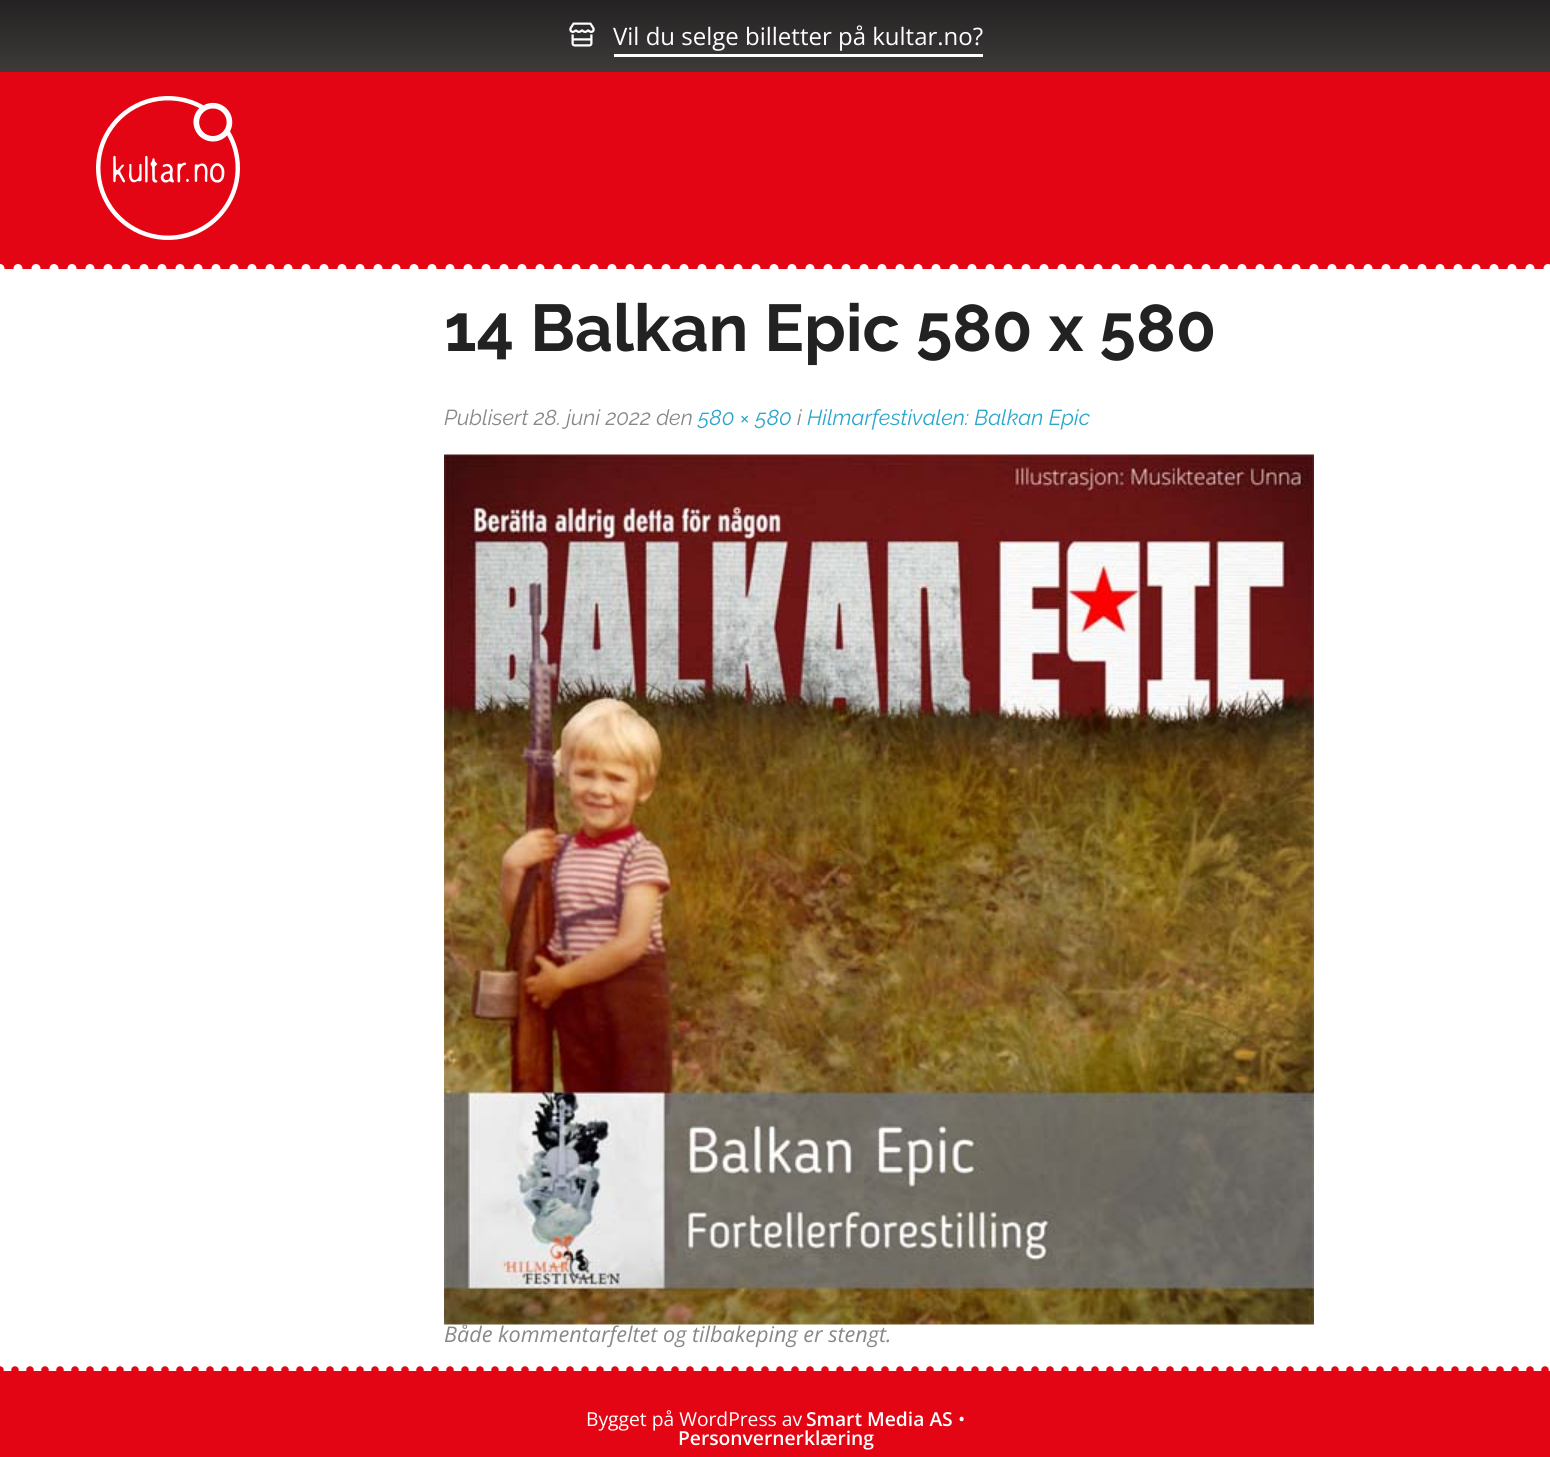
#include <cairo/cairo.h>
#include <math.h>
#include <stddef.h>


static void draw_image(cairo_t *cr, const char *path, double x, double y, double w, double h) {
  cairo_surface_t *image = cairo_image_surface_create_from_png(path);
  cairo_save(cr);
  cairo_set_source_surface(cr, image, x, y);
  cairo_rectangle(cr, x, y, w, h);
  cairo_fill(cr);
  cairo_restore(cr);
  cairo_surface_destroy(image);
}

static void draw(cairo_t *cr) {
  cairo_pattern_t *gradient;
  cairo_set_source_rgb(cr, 1, 1, 1);
  cairo_paint(cr);
  gradient = cairo_pattern_create_linear(776, 0, 776, 72);
  cairo_pattern_add_color_stop_rgba(gradient, 0, 36 / 255.0, 34 / 255.0, 34 / 255.0, 1);
  cairo_pattern_add_color_stop_rgba(gradient, 1, 61 / 255.0, 58 / 255.0, 58 / 255.0, 1);
  cairo_set_source(cr, gradient);
  cairo_pattern_destroy(gradient);
  cairo_rectangle(cr, 0, 0, 1550, 72);
  cairo_fill(cr);
  draw_image(cr, "images/1.png", 569, 22, 26, 25);
  cairo_set_source_rgb(cr, 1, 1, 1);
  cairo_rectangle(cr, 614, 54, 369, 3);
  cairo_fill(cr);
  cairo_set_source_rgb(cr, 227 / 255.0, 5 / 255.0, 19 / 255.0);
  cairo_rectangle(cr, 0, 72, 1550, 197);
  cairo_fill(cr);
  draw_image(cr, "images/2.png", 96, 96, 144, 144);
  cairo_new_path(cr);
  cairo_move_to(cr, 0, 268.5);
  cairo_line_to(cr, 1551, 268.5);
  cairo_set_source_rgb(cr, 1, 1, 1);
  cairo_set_line_width(cr, 9);
  cairo_set_line_cap(cr, CAIRO_LINE_CAP_ROUND);
  cairo_set_dash(cr, (double[]){0, 18}, 2, 0);
  cairo_stroke(cr);
  draw_image(cr, "images/3.png", 444, 454, 870, 871);
  cairo_set_source_rgb(cr, 227 / 255.0, 5 / 255.0, 19 / 255.0);
  cairo_rectangle(cr, 0, 1371, 1550, 86);
  cairo_fill(cr);
  cairo_new_path(cr);
  cairo_move_to(cr, 0, 1370);
  cairo_line_to(cr, 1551, 1370);
  cairo_set_line_width(cr, 7.5);
  cairo_set_dash(cr, (double[]){0, 15}, 2, 0);
  cairo_stroke(cr);
  cairo_select_font_face(cr, "Open Sans", CAIRO_FONT_SLANT_NORMAL, CAIRO_FONT_WEIGHT_NORMAL);
  cairo_set_font_size(cr, 24);
  cairo_set_source_rgb(cr, 1, 1, 1);
  cairo_move_to(cr, 613, 45);
  cairo_show_text(cr, "Vil du selge billetter på kultar.no?");
  cairo_select_font_face(cr, "Raleway", CAIRO_FONT_SLANT_NORMAL, CAIRO_FONT_WEIGHT_BOLD);
  cairo_set_font_size(cr, 66);
  cairo_set_source_rgb(cr, 34 / 255.0, 34 / 255.0, 34 / 255.0);
  cairo_move_to(cr, 444, 351);
  cairo_show_text(cr, "14 Balkan Epic 580 x 580");
  cairo_select_font_face(cr, "Raleway", CAIRO_FONT_SLANT_ITALIC, CAIRO_FONT_WEIGHT_NORMAL);
  cairo_set_font_size(cr, 21.6);
  cairo_set_source_rgb(cr, 136 / 255.0, 136 / 255.0, 136 / 255.0);
  cairo_move_to(cr, 444, 425);
  cairo_show_text(cr, "Publisert 28. juni 2022 den");
  cairo_set_source_rgb(cr, 43 / 255.0, 166 / 255.0, 203 / 255.0);
  cairo_move_to(cr, 698, 425);
  cairo_show_text(cr, "580 × 580");
  cairo_set_source_rgb(cr, 136 / 255.0, 136 / 255.0, 136 / 255.0);
  cairo_move_to(cr, 797, 425);
  cairo_show_text(cr, "i");
  cairo_set_source_rgb(cr, 43 / 255.0, 166 / 255.0, 203 / 255.0);
  cairo_move_to(cr, 807, 425);
  cairo_show_text(cr, "Hilmarfestivalen: Balkan Epic");
  cairo_select_font_face(cr, "Open Sans", CAIRO_FONT_SLANT_ITALIC, CAIRO_FONT_WEIGHT_NORMAL);
  cairo_set_source_rgb(cr, 136 / 255.0, 136 / 255.0, 136 / 255.0);
  cairo_move_to(cr, 444, 1342);
  cairo_show_text(cr, "Både kommentarfeltet og tilbakeping er stengt.");
  cairo_select_font_face(cr, "Open Sans", CAIRO_FONT_SLANT_NORMAL, CAIRO_FONT_WEIGHT_NORMAL);
  cairo_set_font_size(cr, 19.25);
  cairo_set_source_rgb(cr, 1, 1, 1);
  cairo_move_to(cr, 586, 1426);
  cairo_show_text(cr, "Bygget på WordPress av");
  cairo_select_font_face(cr, "Open Sans SemiBold", CAIRO_FONT_SLANT_NORMAL, CAIRO_FONT_WEIGHT_NORMAL);
  cairo_move_to(cr, 806, 1426);
  cairo_show_text(cr, "Smart Media AS");
  cairo_select_font_face(cr, "Open Sans", CAIRO_FONT_SLANT_NORMAL, CAIRO_FONT_WEIGHT_NORMAL);
  cairo_move_to(cr, 958, 1426);
  cairo_show_text(cr, "•");
  cairo_select_font_face(cr, "Open Sans SemiBold", CAIRO_FONT_SLANT_NORMAL, CAIRO_FONT_WEIGHT_NORMAL);
  cairo_move_to(cr, 678, 1445);
  cairo_show_text(cr, "Personvernerklæring");
}

int main(void) {
  cairo_surface_t *surface = cairo_image_surface_create(CAIRO_FORMAT_RGB24, 1550, 1457);
  cairo_t *cr = cairo_create(surface);
  cairo_font_options_t *options = cairo_font_options_create();
  cairo_font_options_set_hint_metrics(options, CAIRO_HINT_METRICS_OFF);
  cairo_font_options_set_hint_style(options, CAIRO_HINT_STYLE_NONE);
  cairo_set_font_options(cr, options);
  cairo_set_miter_limit(cr, 4);
  draw(cr);
  cairo_surface_write_to_png(surface, "out.png");
  cairo_font_options_destroy(options);
  cairo_destroy(cr);
  cairo_surface_destroy(surface);
  return 0;
}
